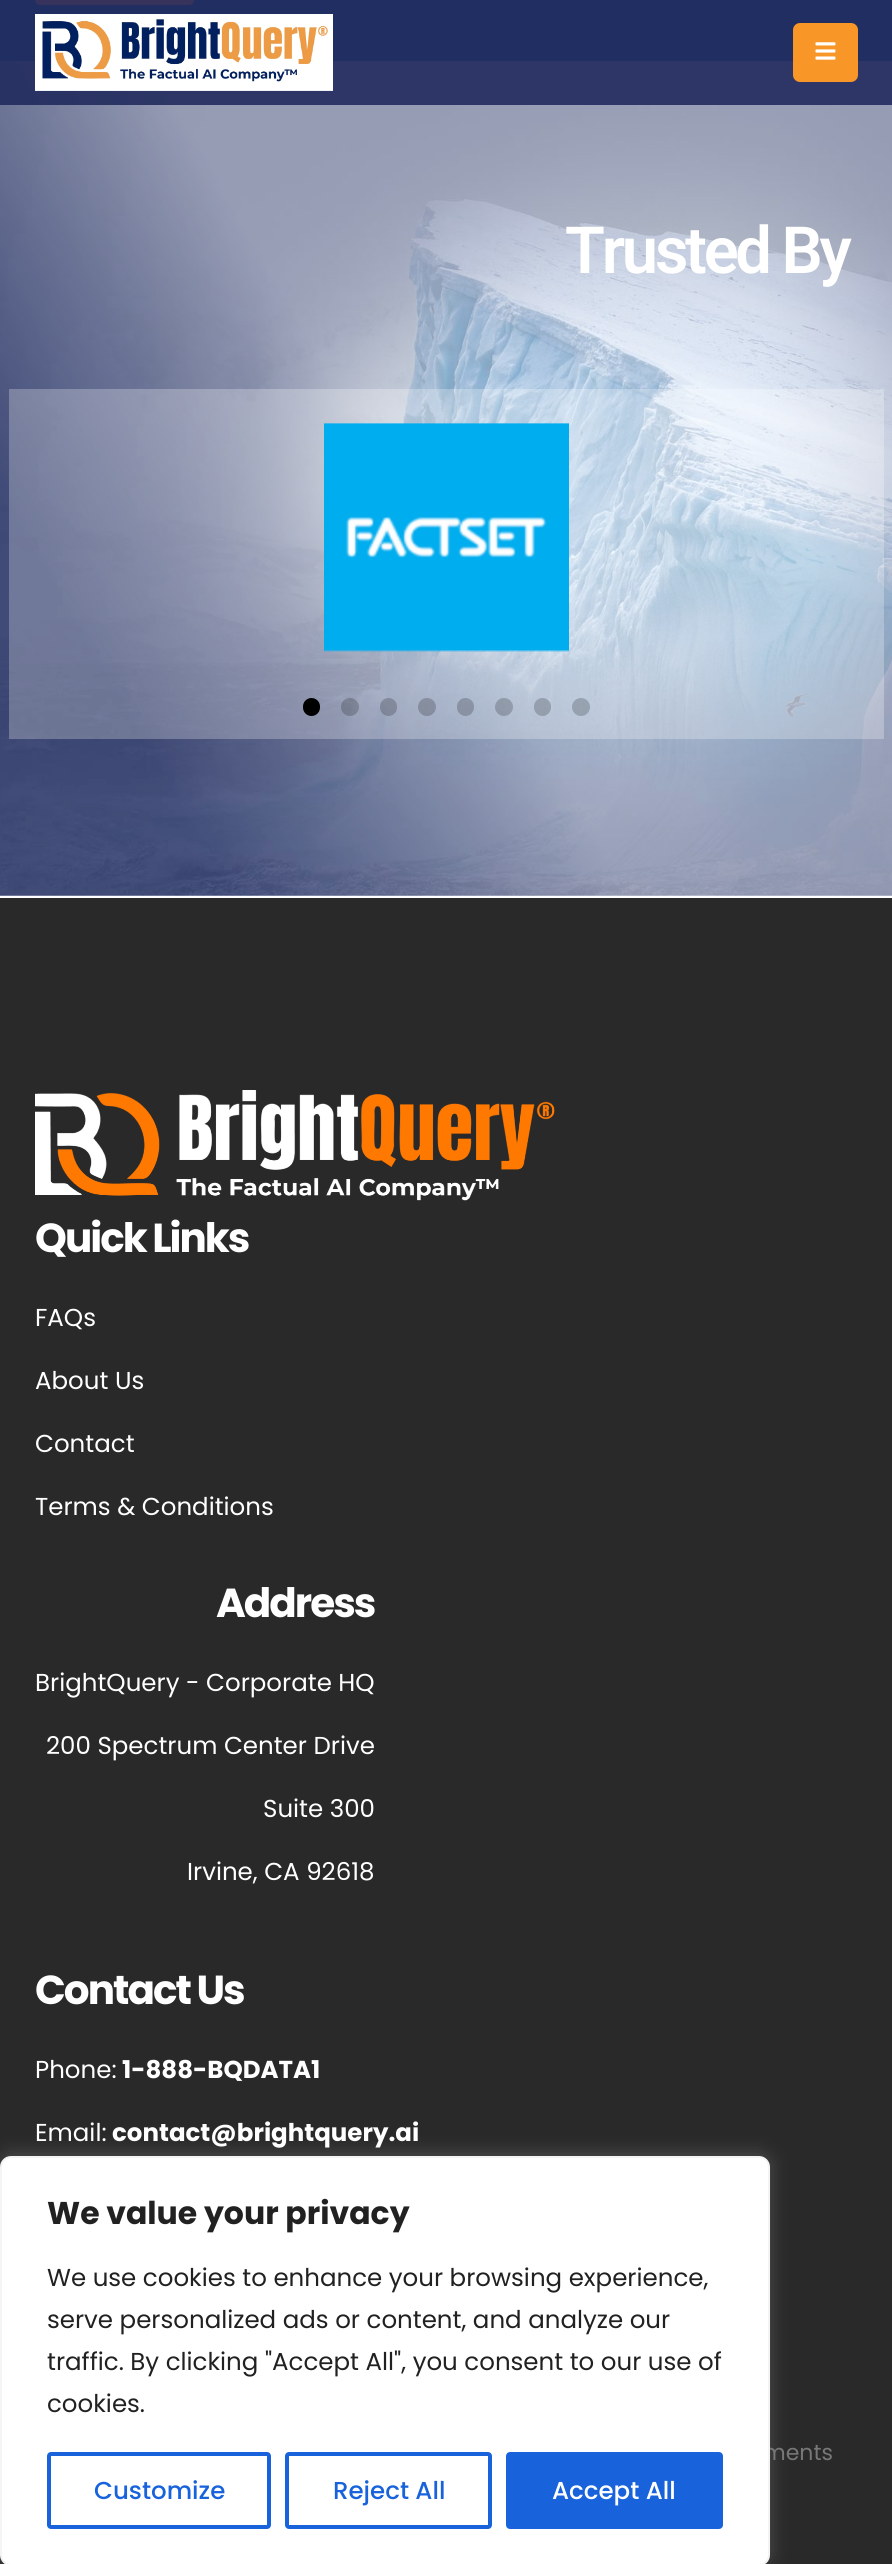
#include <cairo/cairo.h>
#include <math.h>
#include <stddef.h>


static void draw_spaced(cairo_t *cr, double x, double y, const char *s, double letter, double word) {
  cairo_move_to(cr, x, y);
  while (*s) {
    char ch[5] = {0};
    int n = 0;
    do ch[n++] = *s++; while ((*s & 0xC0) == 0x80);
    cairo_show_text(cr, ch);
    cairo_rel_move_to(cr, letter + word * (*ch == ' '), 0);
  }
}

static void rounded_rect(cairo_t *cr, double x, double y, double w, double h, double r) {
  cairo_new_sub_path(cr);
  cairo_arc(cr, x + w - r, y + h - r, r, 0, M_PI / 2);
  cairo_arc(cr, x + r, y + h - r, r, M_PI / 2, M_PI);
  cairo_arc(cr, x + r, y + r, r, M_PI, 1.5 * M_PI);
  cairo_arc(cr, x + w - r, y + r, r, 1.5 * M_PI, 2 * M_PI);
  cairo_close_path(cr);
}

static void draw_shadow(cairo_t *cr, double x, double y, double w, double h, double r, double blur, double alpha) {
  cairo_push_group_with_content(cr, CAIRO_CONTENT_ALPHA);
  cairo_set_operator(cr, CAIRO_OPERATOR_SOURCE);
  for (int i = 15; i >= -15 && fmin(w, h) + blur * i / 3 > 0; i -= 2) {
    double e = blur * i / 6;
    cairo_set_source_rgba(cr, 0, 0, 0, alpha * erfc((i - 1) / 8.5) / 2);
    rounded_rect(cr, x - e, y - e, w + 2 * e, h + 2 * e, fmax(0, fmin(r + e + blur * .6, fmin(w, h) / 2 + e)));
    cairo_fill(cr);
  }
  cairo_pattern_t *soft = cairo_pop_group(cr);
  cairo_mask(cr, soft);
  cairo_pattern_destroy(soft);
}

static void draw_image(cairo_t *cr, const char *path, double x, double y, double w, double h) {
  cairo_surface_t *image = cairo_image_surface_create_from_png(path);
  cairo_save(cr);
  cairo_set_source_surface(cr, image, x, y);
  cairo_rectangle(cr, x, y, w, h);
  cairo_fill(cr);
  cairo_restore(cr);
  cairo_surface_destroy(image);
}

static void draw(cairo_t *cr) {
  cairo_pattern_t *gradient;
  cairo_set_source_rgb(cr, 1, 1, 1);
  cairo_paint(cr);
  cairo_set_source_rgb(cr, 28 / 255.0, 69 / 255.0, 135 / 255.0);
  cairo_rectangle(cr, 0, 0, 892, 61);
  cairo_fill(cr);
  draw_image(cr, "images/3.png", 35, 0, 160, 5);
  draw_image(cr, "images/4.png", 0, 61, 892, 835);
  cairo_set_source_rgba(cr, 1, 1, 1, 0.26);
  cairo_rectangle(cr, 9, 389, 875, 350);
  cairo_fill(cr);
  gradient = cairo_pattern_create_linear(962, 181, -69, 776);
  cairo_pattern_add_color_stop_rgba(gradient, 0.54, 1, 1, 1, 0.5);
  cairo_pattern_add_color_stop_rgba(gradient, 0.83, 244 / 255.0, 244 / 255.0, 244 / 255.0, 0.12);
  cairo_set_source(cr, gradient);
  cairo_pattern_destroy(gradient);
  cairo_rectangle(cr, 0, 61, 892, 835);
  cairo_fill(cr);
  cairo_set_source_rgba(cr, 34 / 255.0, 44 / 255.0, 94 / 255.0, 0.9);
  cairo_rectangle(cr, 0, 0, 892, 105);
  cairo_fill(cr);
  draw_image(cr, "images/1.png", 35, 14, 298, 77);
  cairo_set_source_rgb(cr, 248 / 255.0, 151 / 255.0, 40 / 255.0);
  rounded_rect(cr, 793, 23, 65, 59, 7);
  cairo_fill(cr);
  draw_image(cr, "images/2.png", 815, 42, 21, 18);
  draw_image(cr, "images/5.png", 324, 423, 245, 229);
  cairo_set_source_rgb(cr, 0, 0, 0);
  rounded_rect(cr, 303, 698, 17, 18, 8.5);
  cairo_fill(cr);
  cairo_set_source_rgba(cr, 0, 0, 0, 0.2);
  cairo_arc(cr, 350, 707, 9, 0, 2 * M_PI);
  cairo_fill(cr);
  rounded_rect(cr, 380, 698, 17, 18, 8.5);
  cairo_fill(cr);
  cairo_arc(cr, 427, 707, 9, 0, 2 * M_PI);
  cairo_fill(cr);
  rounded_rect(cr, 457, 698, 17, 18, 8.5);
  cairo_fill(cr);
  cairo_arc(cr, 504, 707, 9, 0, 2 * M_PI);
  cairo_fill(cr);
  rounded_rect(cr, 534, 698, 17, 18, 8.5);
  cairo_fill(cr);
  cairo_arc(cr, 581, 707, 9, 0, 2 * M_PI);
  cairo_fill(cr);
  cairo_set_source_rgb(cr, 41 / 255.0, 41 / 255.0, 41 / 255.0);
  cairo_rectangle(cr, 0, 898, 892, 1666);
  cairo_fill(cr);
  draw_image(cr, "images/6.png", 35, 1090, 520, 111);
  cairo_set_source_rgb(cr, 172 / 255.0, 171 / 255.0, 171 / 255.0);
  draw_shadow(cr, 0, 2154, 770, 410, 11, 9, 0.3);
  cairo_select_font_face(cr, "Roboto SemiBold", CAIRO_FONT_SLANT_NORMAL, CAIRO_FONT_WEIGHT_NORMAL);
  cairo_set_font_size(cr, 65);
  cairo_set_source_rgb(cr, 1, 1, 1);
  draw_spaced(cr, 565, 273, "Trusted By", -3.25, 0);
  cairo_select_font_face(cr, "Poppins", CAIRO_FONT_SLANT_NORMAL, CAIRO_FONT_WEIGHT_BOLD);
  cairo_set_font_size(cr, 40.5);
  draw_spaced(cr, 35, 1252, "Quick Links", -2, 0);
  cairo_select_font_face(cr, "Poppins", CAIRO_FONT_SLANT_NORMAL, CAIRO_FONT_WEIGHT_NORMAL);
  cairo_set_font_size(cr, 24.5);
  cairo_move_to(cr, 35, 1326);
  cairo_show_text(cr, "FAQs");
  cairo_move_to(cr, 35, 1389);
  cairo_show_text(cr, "About Us");
  cairo_move_to(cr, 35, 1452);
  cairo_show_text(cr, "Contact");
  cairo_move_to(cr, 35, 1515);
  cairo_show_text(cr, "Terms & Conditions");
  cairo_select_font_face(cr, "Poppins", CAIRO_FONT_SLANT_NORMAL, CAIRO_FONT_WEIGHT_BOLD);
  cairo_set_font_size(cr, 40.5);
  draw_spaced(cr, 216, 1617, "Address", -2, 0);
  cairo_select_font_face(cr, "Poppins", CAIRO_FONT_SLANT_NORMAL, CAIRO_FONT_WEIGHT_NORMAL);
  cairo_set_font_size(cr, 24.5);
  cairo_move_to(cr, 35, 1691);
  cairo_show_text(cr, "BrightQuery - Corporate HQ");
  cairo_move_to(cr, 46, 1754);
  cairo_show_text(cr, "200 Spectrum Center Drive");
  cairo_move_to(cr, 263, 1817);
  cairo_show_text(cr, "Suite 300");
  cairo_move_to(cr, 187, 1880);
  cairo_show_text(cr, "Irvine, CA 92618");
  cairo_select_font_face(cr, "Poppins", CAIRO_FONT_SLANT_NORMAL, CAIRO_FONT_WEIGHT_BOLD);
  cairo_set_font_size(cr, 40.5);
  draw_spaced(cr, 35, 2004, "Contact Us", -2, 0);
  cairo_select_font_face(cr, "Poppins", CAIRO_FONT_SLANT_NORMAL, CAIRO_FONT_WEIGHT_NORMAL);
  cairo_set_font_size(cr, 24.5);
  cairo_move_to(cr, 35, 2078);
  cairo_show_text(cr, "Phone:");
  cairo_select_font_face(cr, "Poppins", CAIRO_FONT_SLANT_NORMAL, CAIRO_FONT_WEIGHT_BOLD);
  cairo_move_to(cr, 122, 2078);
  cairo_show_text(cr, "1-888-BQDATA1");
  cairo_select_font_face(cr, "Poppins", CAIRO_FONT_SLANT_NORMAL, CAIRO_FONT_WEIGHT_NORMAL);
  cairo_move_to(cr, 35, 2141);
  cairo_show_text(cr, "Email:");
  cairo_select_font_face(cr, "Poppins", CAIRO_FONT_SLANT_NORMAL, CAIRO_FONT_WEIGHT_BOLD);
  cairo_move_to(cr, 112, 2141);
  cairo_show_text(cr, "contact@brightquery.ai");
  cairo_select_font_face(cr, "Poppins", CAIRO_FONT_SLANT_NORMAL, CAIRO_FONT_WEIGHT_NORMAL);
  cairo_set_font_size(cr, 22);
  cairo_set_source_rgb(cr, 119 / 255.0, 119 / 255.0, 119 / 255.0);
  cairo_move_to(cr, 763, 2460);
  cairo_show_text(cr, "ments");
  cairo_set_source_rgb(cr, 1, 1, 1);
  rounded_rect(cr, 1, 2157, 768, 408, 10);
  cairo_fill_preserve(cr);
  cairo_set_source_rgb(cr, 244 / 255.0, 244 / 255.0, 244 / 255.0);
  cairo_stroke(cr);
  cairo_select_font_face(cr, "Poppins", CAIRO_FONT_SLANT_NORMAL, CAIRO_FONT_WEIGHT_BOLD);
  cairo_set_font_size(cr, 31.5);
  cairo_set_source_rgb(cr, 33 / 255.0, 33 / 255.0, 33 / 255.0);
  cairo_move_to(cr, 47, 2224);
  cairo_show_text(cr, "We value your privacy");
  cairo_select_font_face(cr, "Poppins", CAIRO_FONT_SLANT_NORMAL, CAIRO_FONT_WEIGHT_NORMAL);
  cairo_set_font_size(cr, 24.5);
  cairo_move_to(cr, 47, 2286);
  cairo_show_text(cr, "We use cookies to enhance your browsing experience,");
  cairo_move_to(cr, 47, 2328);
  cairo_show_text(cr, "serve personalized ads or content, and analyze our");
  cairo_move_to(cr, 47, 2370);
  cairo_show_text(cr, "traffic. By clicking \"Accept All\", you consent to our use of");
  cairo_move_to(cr, 47, 2412);
  cairo_show_text(cr, "cookies.");
  rounded_rect(cr, 49, 2454, 220, 73, 2);
  cairo_set_source_rgb(cr, 24 / 255.0, 99 / 255.0, 220 / 255.0);
  cairo_set_line_width(cr, 4);
  cairo_stroke(cr);
  cairo_select_font_face(cr, "Poppins Medium", CAIRO_FONT_SLANT_NORMAL, CAIRO_FONT_WEIGHT_NORMAL);
  cairo_move_to(cr, 94, 2499);
  cairo_show_text(cr, "Customize");
  rounded_rect(cr, 287, 2454, 203, 73, 2);
  cairo_stroke(cr);
  cairo_move_to(cr, 333, 2499);
  cairo_show_text(cr, "Reject All");
  rounded_rect(cr, 508, 2454, 213, 73, 2);
  cairo_fill_preserve(cr);
  cairo_stroke(cr);
  cairo_set_source_rgb(cr, 1, 1, 1);
  cairo_move_to(cr, 552, 2499);
  cairo_show_text(cr, "Accept All");
}

int main(void) {
  cairo_surface_t *surface = cairo_image_surface_create(CAIRO_FORMAT_RGB24, 892, 2564);
  cairo_t *cr = cairo_create(surface);
  cairo_font_options_t *options = cairo_font_options_create();
  cairo_font_options_set_hint_metrics(options, CAIRO_HINT_METRICS_OFF);
  cairo_font_options_set_hint_style(options, CAIRO_HINT_STYLE_NONE);
  cairo_set_font_options(cr, options);
  cairo_set_miter_limit(cr, 4);
  draw(cr);
  cairo_surface_write_to_png(surface, "out.png");
  cairo_font_options_destroy(options);
  cairo_destroy(cr);
  cairo_surface_destroy(surface);
  return 0;
}
